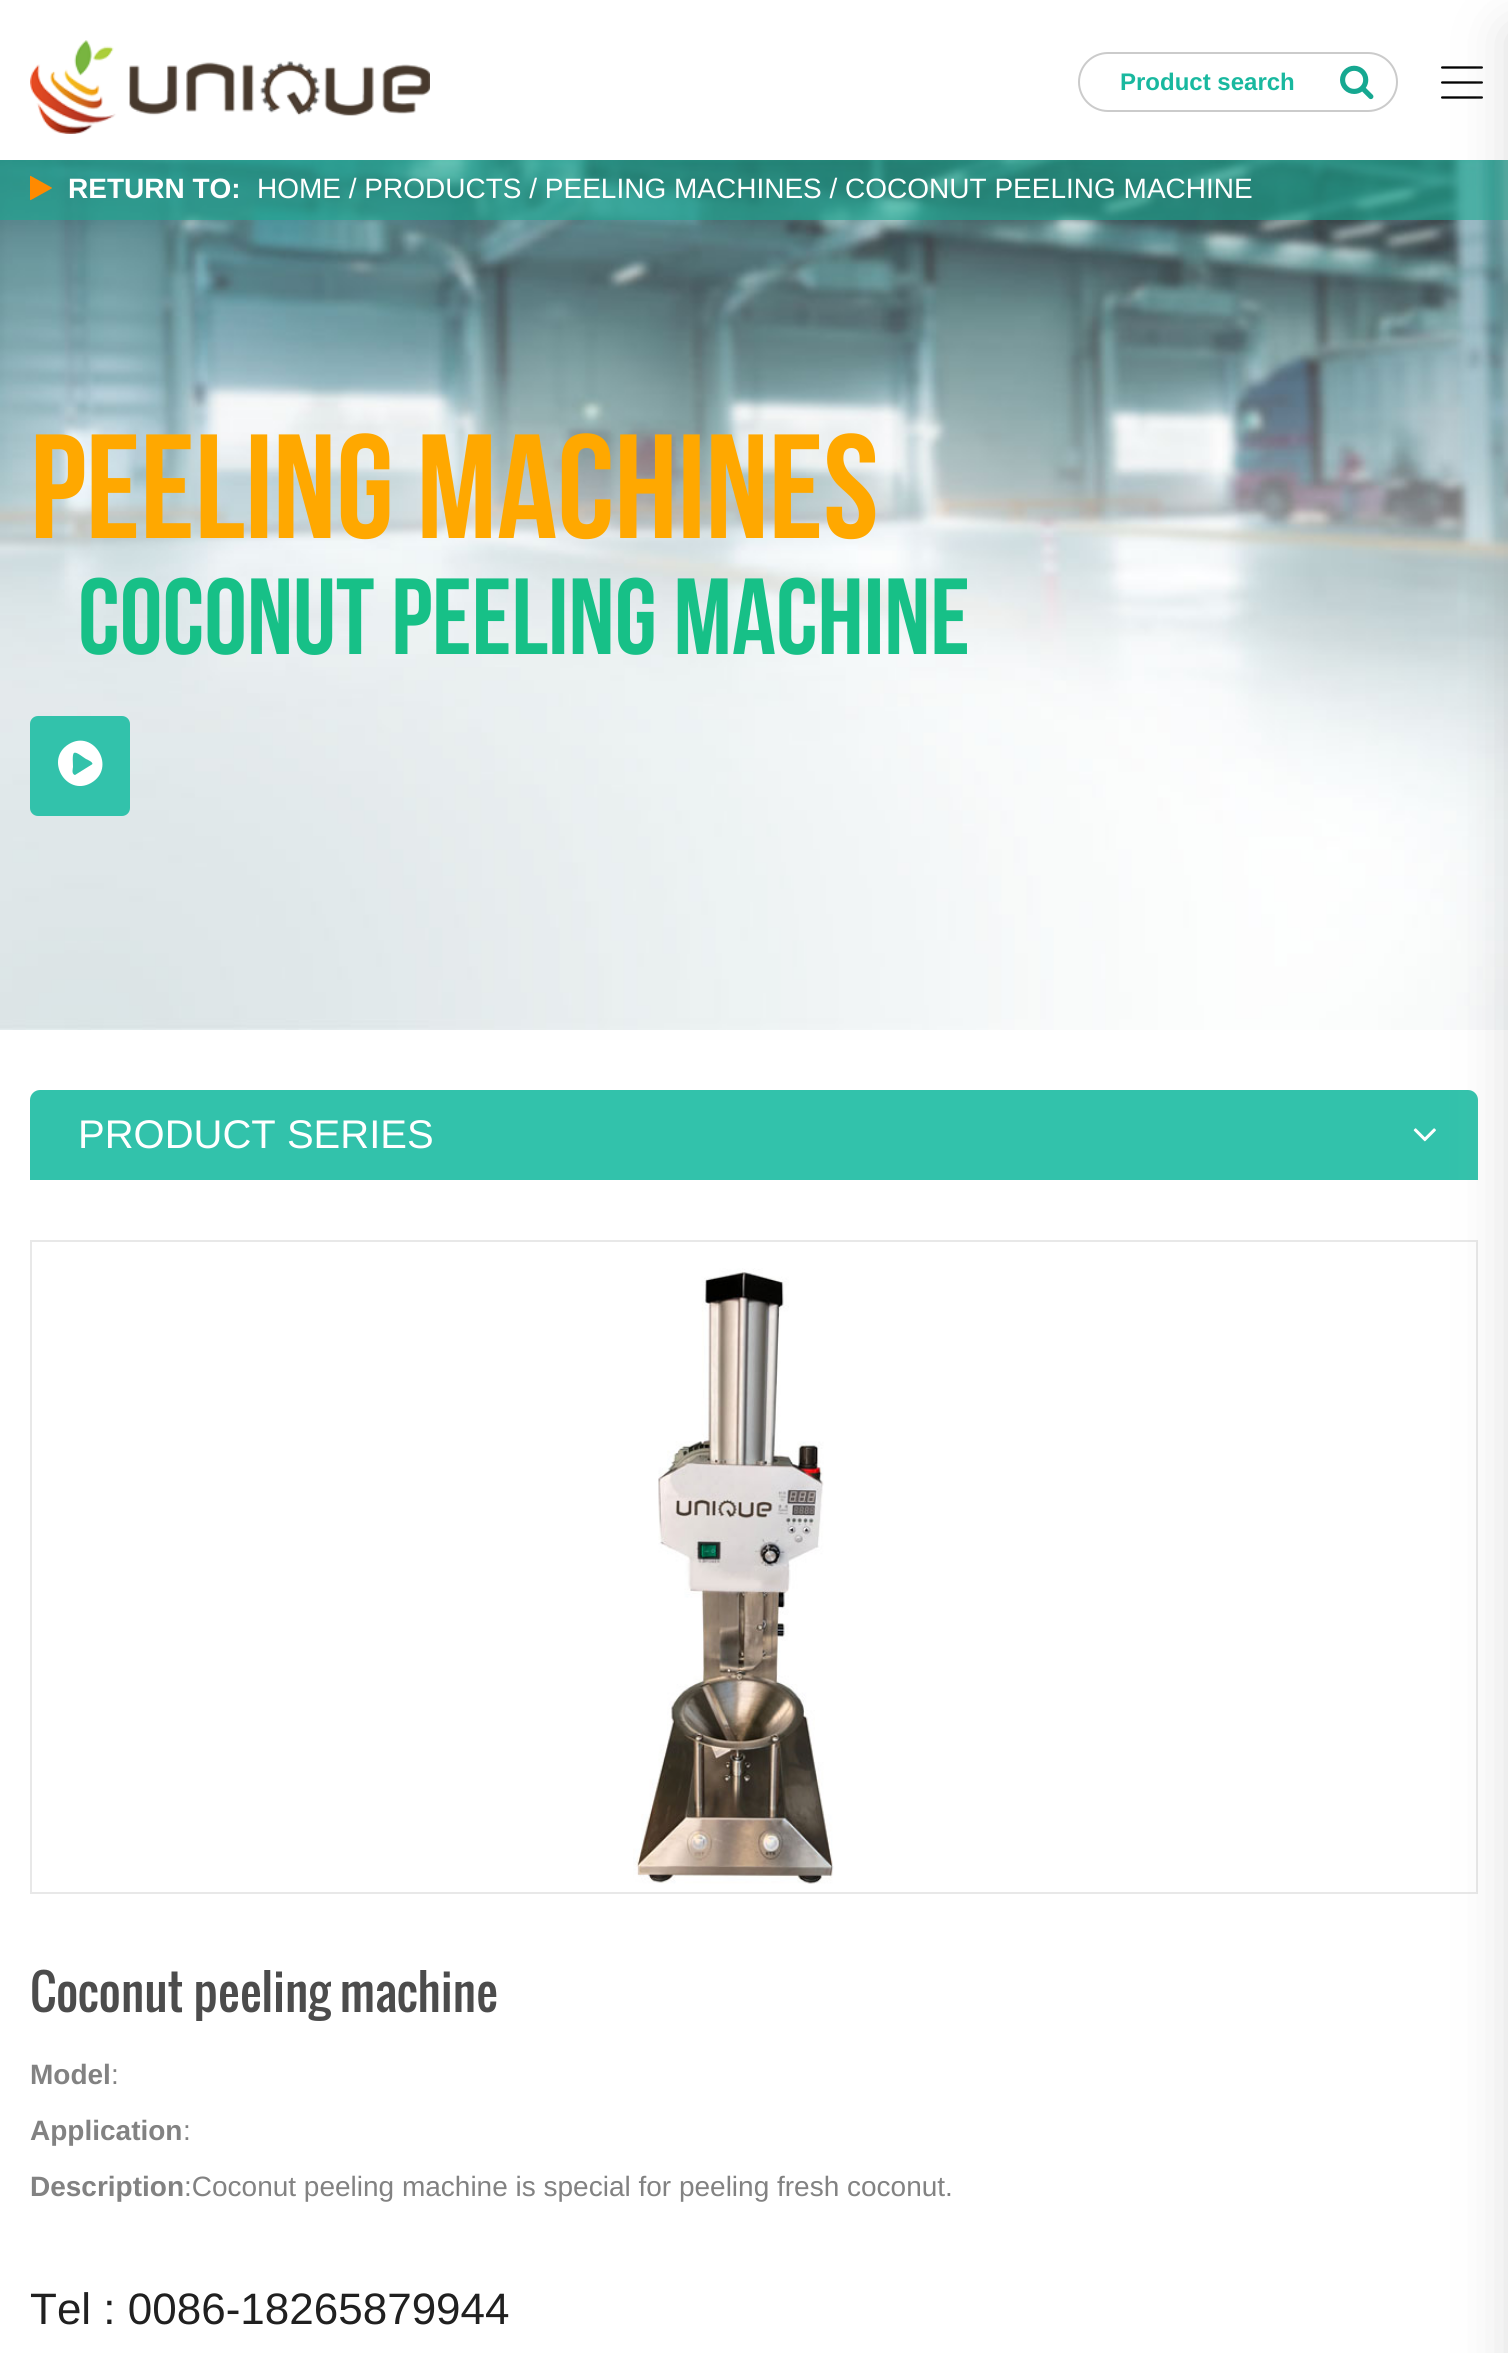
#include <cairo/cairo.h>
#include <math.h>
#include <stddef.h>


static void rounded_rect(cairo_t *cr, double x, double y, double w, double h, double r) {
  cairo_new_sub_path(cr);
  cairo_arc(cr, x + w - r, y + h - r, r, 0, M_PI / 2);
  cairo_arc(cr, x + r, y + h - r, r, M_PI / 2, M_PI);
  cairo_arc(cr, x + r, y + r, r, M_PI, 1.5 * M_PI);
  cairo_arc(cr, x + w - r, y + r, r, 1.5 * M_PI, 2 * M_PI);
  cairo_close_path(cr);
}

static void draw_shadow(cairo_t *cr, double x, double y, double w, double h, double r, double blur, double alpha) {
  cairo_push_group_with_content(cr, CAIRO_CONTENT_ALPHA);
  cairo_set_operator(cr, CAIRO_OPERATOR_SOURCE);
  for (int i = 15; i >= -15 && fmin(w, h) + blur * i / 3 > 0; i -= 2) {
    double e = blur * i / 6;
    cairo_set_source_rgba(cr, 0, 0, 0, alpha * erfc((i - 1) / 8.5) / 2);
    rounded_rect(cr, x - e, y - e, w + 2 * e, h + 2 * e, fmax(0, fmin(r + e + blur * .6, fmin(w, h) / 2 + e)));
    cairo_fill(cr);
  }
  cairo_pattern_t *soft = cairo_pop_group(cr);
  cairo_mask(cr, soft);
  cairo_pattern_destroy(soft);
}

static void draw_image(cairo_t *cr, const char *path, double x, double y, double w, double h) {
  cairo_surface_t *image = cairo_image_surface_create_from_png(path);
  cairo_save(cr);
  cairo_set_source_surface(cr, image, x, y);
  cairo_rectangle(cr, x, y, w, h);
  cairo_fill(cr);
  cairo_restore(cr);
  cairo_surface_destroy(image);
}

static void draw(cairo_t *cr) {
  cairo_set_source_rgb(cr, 1, 1, 1);
  cairo_paint(cr);
  draw_image(cr, "images/1.png", 30, 40, 400, 94);
  rounded_rect(cr, 1079, 53, 318, 58, 29);
  cairo_set_source_rgb(cr, 203 / 255.0, 203 / 255.0, 203 / 255.0);
  cairo_stroke(cr);
  draw_image(cr, "images/2.png", 1340, 65, 34, 35);
  draw_image(cr, "images/3.png", 1441, 66, 42, 33);
  draw_image(cr, "images/4.png", 0, 160, 1508, 870);
  cairo_set_source_rgba(cr, 22 / 255.0, 168 / 255.0, 145 / 255.0, 0.6);
  cairo_rectangle(cr, 0, 160, 1508, 60);
  cairo_fill(cr);
  draw_image(cr, "images/5.png", 30, 175, 22, 26);
  cairo_set_source_rgb(cr, 50 / 255.0, 194 / 255.0, 171 / 255.0);
  rounded_rect(cr, 30, 716, 100, 100, 8);
  cairo_fill(cr);
  cairo_set_source_rgb(cr, 1, 1, 1);
  cairo_new_path(cr);
  cairo_move_to(cr, 69, 744);
  cairo_curve_to(cr, 94, 729, 117, 768, 91, 783);
  cairo_curve_to(cr, 66, 797, 44, 759, 69, 744);
  cairo_close_path(cr);
  cairo_move_to(cr, 91, 765);
  cairo_curve_to(cr, 96, 763, 86, 759, 86, 759);
  cairo_curve_to(cr, 84, 758, 76, 751, 74, 753);
  cairo_curve_to(cr, 72, 754, 73, 764, 73, 767);
  cairo_curve_to(cr, 73, 768, 71, 774, 75, 775);
  cairo_close_path(cr);
  cairo_fill(cr);
  cairo_set_source_rgb(cr, 50 / 255.0, 194 / 255.0, 171 / 255.0);
  cairo_new_path(cr);
  cairo_move_to(cr, 40, 1090);
  cairo_line_to(cr, 1468, 1090);
  cairo_curve_to(cr, 1473.5, 1090, 1478, 1094.5, 1478, 1100);
  cairo_line_to(cr, 1478, 1180);
  cairo_line_to(cr, 30, 1180);
  cairo_line_to(cr, 30, 1100);
  cairo_curve_to(cr, 30, 1094.5, 34.5, 1090, 40, 1090);
  cairo_close_path(cr);
  cairo_fill(cr);
  draw_image(cr, "images/6.png", 1413, 1128, 23, 14);
  cairo_rectangle(cr, 31, 1241, 1446, 652);
  cairo_set_source_rgb(cr, 232 / 255.0, 232 / 255.0, 232 / 255.0);
  cairo_stroke(cr);
  draw_image(cr, "images/7.png", 633, 1268, 201, 616);
  cairo_set_source_rgb(cr, 167 / 255.0, 165 / 255.0, 165 / 255.0);
  draw_shadow(cr, 1508, 30, 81, 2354, 0, 27, 0.38);
  cairo_select_font_face(cr, "Liberation Sans", CAIRO_FONT_SLANT_NORMAL, CAIRO_FONT_WEIGHT_BOLD);
  cairo_set_font_size(cr, 24);
  cairo_set_source_rgb(cr, 25 / 255.0, 184 / 255.0, 159 / 255.0);
  cairo_move_to(cr, 1120, 90);
  cairo_show_text(cr, "Product search");
  cairo_set_font_size(cr, 28);
  cairo_set_source_rgb(cr, 1, 1, 1);
  cairo_move_to(cr, 68, 198);
  cairo_show_text(cr, "RETURN TO:");
  cairo_select_font_face(cr, "Liberation Sans", CAIRO_FONT_SLANT_NORMAL, CAIRO_FONT_WEIGHT_NORMAL);
  cairo_move_to(cr, 257, 198);
  cairo_show_text(cr, "HOME / PRODUCTS / PEELING MACHINES / COCONUT PEELING MACHINE");
  cairo_select_font_face(cr, "Bebas Neue", CAIRO_FONT_SLANT_NORMAL, CAIRO_FONT_WEIGHT_NORMAL);
  cairo_set_font_size(cr, 148);
  cairo_set_source_rgb(cr, 1, 168 / 255.0, 0);
  cairo_move_to(cr, 30, 538);
  cairo_show_text(cr, "Peeling machines");
  cairo_set_font_size(cr, 108);
  cairo_set_source_rgb(cr, 23 / 255.0, 192 / 255.0, 135 / 255.0);
  cairo_move_to(cr, 78, 654);
  cairo_show_text(cr, "Coconut peeling machine");
  cairo_select_font_face(cr, "Liberation Sans", CAIRO_FONT_SLANT_NORMAL, CAIRO_FONT_WEIGHT_NORMAL);
  cairo_set_font_size(cr, 40);
  cairo_set_source_rgb(cr, 1, 1, 1);
  cairo_move_to(cr, 78, 1148);
  cairo_show_text(cr, "PRODUCT SERIES");
  cairo_select_font_face(cr, "Oswald", CAIRO_FONT_SLANT_NORMAL, CAIRO_FONT_WEIGHT_NORMAL);
  cairo_set_font_size(cr, 48);
  cairo_set_source_rgb(cr, 76 / 255.0, 76 / 255.0, 76 / 255.0);
  cairo_move_to(cr, 30, 2012);
  cairo_show_text(cr, "Coconut peeling machine");
  cairo_select_font_face(cr, "Liberation Sans", CAIRO_FONT_SLANT_NORMAL, CAIRO_FONT_WEIGHT_BOLD);
  cairo_set_font_size(cr, 28);
  cairo_set_source_rgb(cr, 130 / 255.0, 130 / 255.0, 130 / 255.0);
  cairo_move_to(cr, 30, 2084);
  cairo_show_text(cr, "Model");
  cairo_select_font_face(cr, "Liberation Sans", CAIRO_FONT_SLANT_NORMAL, CAIRO_FONT_WEIGHT_NORMAL);
  cairo_move_to(cr, 111, 2084);
  cairo_show_text(cr, ":");
  cairo_select_font_face(cr, "Liberation Sans", CAIRO_FONT_SLANT_NORMAL, CAIRO_FONT_WEIGHT_BOLD);
  cairo_move_to(cr, 30, 2140);
  cairo_show_text(cr, "Application");
  cairo_select_font_face(cr, "Liberation Sans", CAIRO_FONT_SLANT_NORMAL, CAIRO_FONT_WEIGHT_NORMAL);
  cairo_move_to(cr, 183, 2140);
  cairo_show_text(cr, ":");
  cairo_select_font_face(cr, "Liberation Sans", CAIRO_FONT_SLANT_NORMAL, CAIRO_FONT_WEIGHT_BOLD);
  cairo_move_to(cr, 30, 2196);
  cairo_show_text(cr, "Description");
  cairo_select_font_face(cr, "Liberation Sans", CAIRO_FONT_SLANT_NORMAL, CAIRO_FONT_WEIGHT_NORMAL);
  cairo_move_to(cr, 184, 2196);
  cairo_show_text(cr, ":Coconut peeling machine is special for peeling fresh coconut.");
  cairo_set_font_size(cr, 44);
  cairo_set_source_rgb(cr, 32 / 255.0, 32 / 255.0, 32 / 255.0);
  cairo_move_to(cr, 30, 2324);
  cairo_show_text(cr, "Tel : 0086-18265879944");
}

int main(void) {
  cairo_surface_t *surface = cairo_image_surface_create(CAIRO_FORMAT_RGB24, 1508, 2353);
  cairo_t *cr = cairo_create(surface);
  cairo_font_options_t *options = cairo_font_options_create();
  cairo_font_options_set_hint_metrics(options, CAIRO_HINT_METRICS_OFF);
  cairo_font_options_set_hint_style(options, CAIRO_HINT_STYLE_NONE);
  cairo_set_font_options(cr, options);
  cairo_set_miter_limit(cr, 4);
  draw(cr);
  cairo_surface_write_to_png(surface, "out.png");
  cairo_font_options_destroy(options);
  cairo_destroy(cr);
  cairo_surface_destroy(surface);
  return 0;
}
